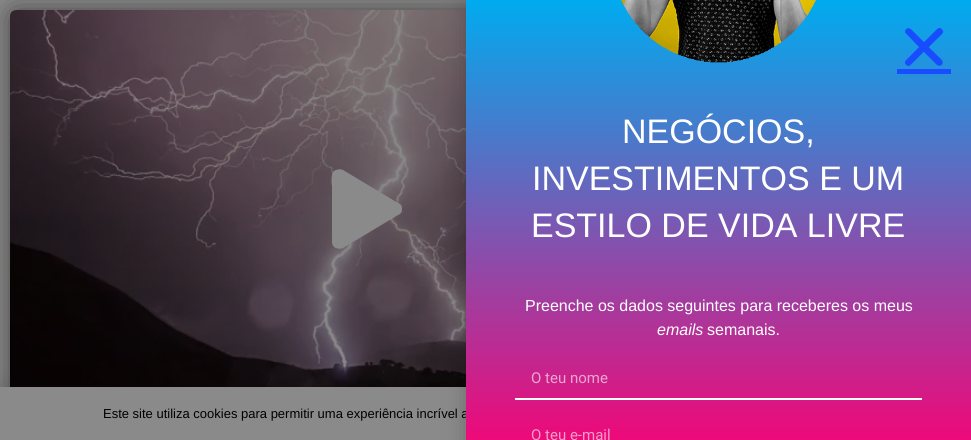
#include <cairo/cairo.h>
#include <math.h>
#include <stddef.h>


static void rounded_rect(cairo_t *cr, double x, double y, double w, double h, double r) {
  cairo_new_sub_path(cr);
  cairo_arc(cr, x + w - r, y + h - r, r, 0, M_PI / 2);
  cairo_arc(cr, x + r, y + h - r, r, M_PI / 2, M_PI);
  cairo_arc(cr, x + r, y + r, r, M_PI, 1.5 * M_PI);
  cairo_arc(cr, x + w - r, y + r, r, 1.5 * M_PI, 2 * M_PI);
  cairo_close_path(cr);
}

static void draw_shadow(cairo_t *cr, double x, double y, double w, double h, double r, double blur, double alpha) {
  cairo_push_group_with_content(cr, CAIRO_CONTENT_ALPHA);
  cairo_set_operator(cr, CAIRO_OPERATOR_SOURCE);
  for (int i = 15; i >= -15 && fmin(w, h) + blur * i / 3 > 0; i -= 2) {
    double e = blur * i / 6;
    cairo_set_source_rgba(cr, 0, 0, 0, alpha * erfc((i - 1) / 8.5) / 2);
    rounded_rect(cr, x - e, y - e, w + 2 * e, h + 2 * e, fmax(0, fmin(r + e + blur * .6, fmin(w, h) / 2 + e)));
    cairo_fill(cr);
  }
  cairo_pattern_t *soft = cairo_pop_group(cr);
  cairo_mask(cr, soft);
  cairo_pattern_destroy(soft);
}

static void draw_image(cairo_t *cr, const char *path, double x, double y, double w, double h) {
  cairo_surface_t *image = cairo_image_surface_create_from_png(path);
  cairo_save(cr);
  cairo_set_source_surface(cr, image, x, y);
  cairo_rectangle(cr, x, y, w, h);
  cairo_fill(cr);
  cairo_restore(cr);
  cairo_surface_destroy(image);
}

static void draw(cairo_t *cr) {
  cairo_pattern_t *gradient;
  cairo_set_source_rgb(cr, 138 / 255.0, 138 / 255.0, 138 / 255.0);
  cairo_paint(cr);
  cairo_set_source_rgb(cr, 0, 0, 0);
  draw_shadow(cr, 10, 10, 713, 401, 6, 13.5, 0.5);
  draw_image(cr, "images/1.png", 10, 10, 456, 377);
  cairo_set_source_rgb(cr, 138 / 255.0, 138 / 255.0, 138 / 255.0);
  cairo_new_path(cr);
  cairo_move_to(cr, 398, 203);
  cairo_curve_to(cr, 401, 204, 402, 206, 402, 209);
  cairo_curve_to(cr, 402, 212, 401, 214, 398, 215);
  cairo_line_to(cr, 343, 248);
  cairo_curve_to(cr, 341, 249, 338, 249, 336, 248);
  cairo_curve_to(cr, 333, 247, 332, 244, 332, 242);
  cairo_line_to(cr, 332, 176);
  cairo_curve_to(cr, 332, 173, 333, 171, 336, 170);
  cairo_curve_to(cr, 339, 169, 341, 169, 343, 170);
  cairo_close_path(cr);
  cairo_fill(cr);
  cairo_set_source_rgb(cr, 0, 0, 0);
  draw_shadow(cr, -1, 392, 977, 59, 0, 11.5, 0.2);
  cairo_set_source_rgb(cr, 138 / 255.0, 138 / 255.0, 138 / 255.0);
  cairo_rectangle(cr, 0, 387, 466, 53);
  cairo_fill(cr);
  cairo_set_source_rgb(cr, 0, 0, 0);
  draw_shadow(cr, 465, 5, 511, 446, 0, 11.5, 0.2);
  cairo_select_font_face(cr, "Liberation Sans", CAIRO_FONT_SLANT_NORMAL, CAIRO_FONT_WEIGHT_NORMAL);
  cairo_set_font_size(cr, 13);
  cairo_set_source_rgb(cr, 0, 0, 0);
  cairo_move_to(cr, 103, 418);
  cairo_show_text(cr, "Este site utiliza cookies para permitir uma experiência incrível a");
  gradient = cairo_pattern_create_linear(719, 0, 719, 440);
  cairo_pattern_add_color_stop_rgba(gradient, 0, 0, 171 / 255.0, 239 / 255.0, 1);
  cairo_pattern_add_color_stop_rgba(gradient, 1, 238 / 255.0, 9 / 255.0, 121 / 255.0, 1);
  cairo_set_source(cr, gradient);
  cairo_pattern_destroy(gradient);
  cairo_rectangle(cr, 466, 0, 505, 440);
  cairo_fill(cr);
  draw_image(cr, "images/2.png", 904, 28, 40, 38);
  cairo_set_source_rgb(cr, 24 / 255.0, 77 / 255.0, 1);
  cairo_rectangle(cr, 897, 69, 54, 5);
  cairo_fill(cr);
  draw_image(cr, "images/3.png", 621, 0, 195, 63);
  cairo_set_font_size(cr, 34);
  cairo_set_source_rgb(cr, 1, 1, 1);
  cairo_move_to(cr, 622, 143);
  cairo_show_text(cr, "NEGÓCIOS,");
  cairo_move_to(cr, 532, 190);
  cairo_show_text(cr, "INVESTIMENTOS E UM");
  cairo_move_to(cr, 531, 237);
  cairo_show_text(cr, "ESTILO DE VIDA LIVRE");
  cairo_set_font_size(cr, 16);
  cairo_move_to(cr, 525, 311);
  cairo_show_text(cr, "Preenche os dados seguintes para receberes os meus");
  cairo_select_font_face(cr, "Liberation Sans", CAIRO_FONT_SLANT_ITALIC, CAIRO_FONT_WEIGHT_NORMAL);
  cairo_move_to(cr, 657, 335);
  cairo_show_text(cr, "emails");
  cairo_select_font_face(cr, "Liberation Sans", CAIRO_FONT_SLANT_NORMAL, CAIRO_FONT_WEIGHT_NORMAL);
  cairo_move_to(cr, 707, 335);
  cairo_show_text(cr, "semanais.");
  cairo_rectangle(cr, 515, 398, 407, 2);
  cairo_fill(cr);
  cairo_select_font_face(cr, "Roboto", CAIRO_FONT_SLANT_NORMAL, CAIRO_FONT_WEIGHT_NORMAL);
  cairo_set_font_size(cr, 15);
  cairo_set_source_rgb(cr, 235 / 255.0, 166 / 255.0, 208 / 255.0);
  cairo_move_to(cr, 531, 383);
  cairo_show_text(cr, "O teu nome");
  cairo_set_source_rgb(cr, 247 / 255.0, 157 / 255.0, 202 / 255.0);
  cairo_move_to(cr, 531, 440);
  cairo_show_text(cr, "O teu e-mail");
}

int main(void) {
  cairo_surface_t *surface = cairo_image_surface_create(CAIRO_FORMAT_RGB24, 971, 440);
  cairo_t *cr = cairo_create(surface);
  cairo_font_options_t *options = cairo_font_options_create();
  cairo_font_options_set_hint_metrics(options, CAIRO_HINT_METRICS_OFF);
  cairo_font_options_set_hint_style(options, CAIRO_HINT_STYLE_NONE);
  cairo_set_font_options(cr, options);
  cairo_set_miter_limit(cr, 4);
  draw(cr);
  cairo_surface_write_to_png(surface, "out.png");
  cairo_font_options_destroy(options);
  cairo_destroy(cr);
  cairo_surface_destroy(surface);
  return 0;
}
